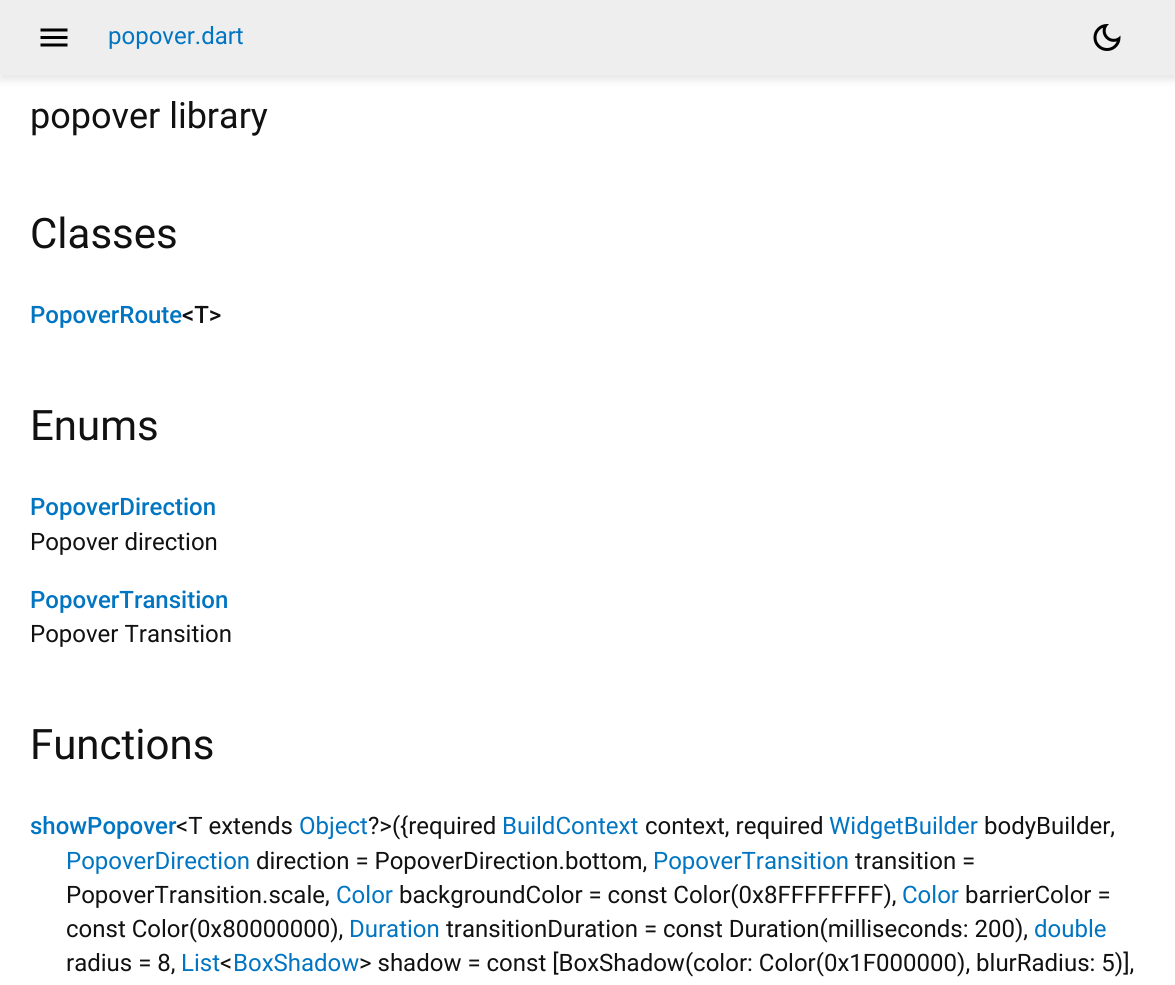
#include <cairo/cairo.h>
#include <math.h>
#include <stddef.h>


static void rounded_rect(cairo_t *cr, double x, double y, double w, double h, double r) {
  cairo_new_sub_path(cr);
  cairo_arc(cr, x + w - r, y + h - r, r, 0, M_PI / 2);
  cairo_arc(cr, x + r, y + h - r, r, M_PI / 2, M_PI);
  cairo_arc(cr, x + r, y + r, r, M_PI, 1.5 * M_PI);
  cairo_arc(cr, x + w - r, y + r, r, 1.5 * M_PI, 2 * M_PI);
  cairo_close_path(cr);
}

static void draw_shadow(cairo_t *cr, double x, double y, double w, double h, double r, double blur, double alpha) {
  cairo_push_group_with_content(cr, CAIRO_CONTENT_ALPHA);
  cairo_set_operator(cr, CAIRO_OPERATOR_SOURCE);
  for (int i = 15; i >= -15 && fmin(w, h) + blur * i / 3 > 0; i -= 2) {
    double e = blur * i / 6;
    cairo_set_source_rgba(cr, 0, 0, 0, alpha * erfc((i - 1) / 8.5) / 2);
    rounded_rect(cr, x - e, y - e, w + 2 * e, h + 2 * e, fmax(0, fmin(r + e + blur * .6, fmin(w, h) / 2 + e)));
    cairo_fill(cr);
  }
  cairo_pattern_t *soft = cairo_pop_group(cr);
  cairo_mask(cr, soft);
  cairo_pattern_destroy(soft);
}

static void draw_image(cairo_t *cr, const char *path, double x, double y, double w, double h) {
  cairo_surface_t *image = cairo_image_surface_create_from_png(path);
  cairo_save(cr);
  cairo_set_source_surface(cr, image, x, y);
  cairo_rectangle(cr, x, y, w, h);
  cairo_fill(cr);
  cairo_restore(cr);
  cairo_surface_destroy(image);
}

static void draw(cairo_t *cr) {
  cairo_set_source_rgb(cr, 1, 1, 1);
  cairo_paint(cr);
  cairo_set_source_rgb(cr, 0, 0, 0);
  draw_shadow(cr, 0, 5, 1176, 75, 0, 4, 0.1);
  cairo_set_source_rgb(cr, 238 / 255.0, 238 / 255.0, 238 / 255.0);
  cairo_rectangle(cr, 0, 0, 1175, 75);
  cairo_fill(cr);
  draw_image(cr, "images/1.png", 40, 28, 28, 19);
  draw_image(cr, "images/2.png", 1093, 24, 28, 27);
  cairo_select_font_face(cr, "Roboto", CAIRO_FONT_SLANT_NORMAL, CAIRO_FONT_WEIGHT_NORMAL);
  cairo_set_font_size(cr, 24);
  cairo_set_source_rgb(cr, 1 / 255.0, 117 / 255.0, 194 / 255.0);
  cairo_move_to(cr, 108, 44);
  cairo_show_text(cr, "popover.dart");
  cairo_set_font_size(cr, 36);
  cairo_set_source_rgb(cr, 17 / 255.0, 17 / 255.0, 17 / 255.0);
  cairo_move_to(cr, 30, 128);
  cairo_show_text(cr, "popover library");
  cairo_set_font_size(cr, 42);
  cairo_move_to(cr, 30, 248);
  cairo_show_text(cr, "Classes");
  cairo_select_font_face(cr, "Roboto Medium", CAIRO_FONT_SLANT_NORMAL, CAIRO_FONT_WEIGHT_NORMAL);
  cairo_set_font_size(cr, 24);
  cairo_set_source_rgb(cr, 1 / 255.0, 117 / 255.0, 194 / 255.0);
  cairo_move_to(cr, 30, 323);
  cairo_show_text(cr, "PopoverRoute");
  cairo_set_source_rgb(cr, 17 / 255.0, 17 / 255.0, 17 / 255.0);
  cairo_move_to(cr, 182, 323);
  cairo_show_text(cr, "<T>");
  cairo_select_font_face(cr, "Roboto", CAIRO_FONT_SLANT_NORMAL, CAIRO_FONT_WEIGHT_NORMAL);
  cairo_set_font_size(cr, 42);
  cairo_move_to(cr, 30, 440);
  cairo_show_text(cr, "Enums");
  cairo_select_font_face(cr, "Roboto Medium", CAIRO_FONT_SLANT_NORMAL, CAIRO_FONT_WEIGHT_NORMAL);
  cairo_set_font_size(cr, 24);
  cairo_set_source_rgb(cr, 1 / 255.0, 117 / 255.0, 194 / 255.0);
  cairo_move_to(cr, 30, 515);
  cairo_show_text(cr, "PopoverDirection");
  cairo_select_font_face(cr, "Roboto", CAIRO_FONT_SLANT_NORMAL, CAIRO_FONT_WEIGHT_NORMAL);
  cairo_set_source_rgb(cr, 17 / 255.0, 17 / 255.0, 17 / 255.0);
  cairo_move_to(cr, 30, 550);
  cairo_show_text(cr, "Popover direction");
  cairo_select_font_face(cr, "Roboto Medium", CAIRO_FONT_SLANT_NORMAL, CAIRO_FONT_WEIGHT_NORMAL);
  cairo_set_source_rgb(cr, 1 / 255.0, 117 / 255.0, 194 / 255.0);
  cairo_move_to(cr, 30, 608);
  cairo_show_text(cr, "PopoverTransition");
  cairo_select_font_face(cr, "Roboto", CAIRO_FONT_SLANT_NORMAL, CAIRO_FONT_WEIGHT_NORMAL);
  cairo_set_source_rgb(cr, 17 / 255.0, 17 / 255.0, 17 / 255.0);
  cairo_move_to(cr, 30, 642);
  cairo_show_text(cr, "Popover Transition");
  cairo_set_font_size(cr, 42);
  cairo_move_to(cr, 30, 759);
  cairo_show_text(cr, "Functions");
  cairo_select_font_face(cr, "Roboto Medium", CAIRO_FONT_SLANT_NORMAL, CAIRO_FONT_WEIGHT_NORMAL);
  cairo_set_font_size(cr, 24);
  cairo_set_source_rgb(cr, 1 / 255.0, 117 / 255.0, 194 / 255.0);
  cairo_move_to(cr, 30, 834);
  cairo_show_text(cr, "showPopover");
  cairo_select_font_face(cr, "Roboto", CAIRO_FONT_SLANT_NORMAL, CAIRO_FONT_WEIGHT_NORMAL);
  cairo_set_source_rgb(cr, 17 / 255.0, 17 / 255.0, 17 / 255.0);
  cairo_move_to(cr, 176, 834);
  cairo_show_text(cr, "<T extends");
  cairo_set_source_rgb(cr, 1 / 255.0, 117 / 255.0, 194 / 255.0);
  cairo_move_to(cr, 299, 834);
  cairo_show_text(cr, "Object");
  cairo_set_source_rgb(cr, 17 / 255.0, 17 / 255.0, 17 / 255.0);
  cairo_move_to(cr, 368, 834);
  cairo_show_text(cr, "?>({required");
  cairo_set_source_rgb(cr, 1 / 255.0, 117 / 255.0, 194 / 255.0);
  cairo_move_to(cr, 502, 834);
  cairo_show_text(cr, "BuildContext");
  cairo_set_source_rgb(cr, 17 / 255.0, 17 / 255.0, 17 / 255.0);
  cairo_move_to(cr, 645, 834);
  cairo_show_text(cr, "context, required");
  cairo_set_source_rgb(cr, 1 / 255.0, 117 / 255.0, 194 / 255.0);
  cairo_move_to(cr, 829, 834);
  cairo_show_text(cr, "WidgetBuilder");
  cairo_set_source_rgb(cr, 17 / 255.0, 17 / 255.0, 17 / 255.0);
  cairo_move_to(cr, 984, 834);
  cairo_show_text(cr, "bodyBuilder,");
  cairo_set_source_rgb(cr, 1 / 255.0, 117 / 255.0, 194 / 255.0);
  cairo_move_to(cr, 66, 869);
  cairo_show_text(cr, "PopoverDirection");
  cairo_set_source_rgb(cr, 17 / 255.0, 17 / 255.0, 17 / 255.0);
  cairo_move_to(cr, 256, 869);
  cairo_show_text(cr, "direction = PopoverDirection.bottom,");
  cairo_set_source_rgb(cr, 1 / 255.0, 117 / 255.0, 194 / 255.0);
  cairo_move_to(cr, 653, 869);
  cairo_show_text(cr, "PopoverTransition");
  cairo_set_source_rgb(cr, 17 / 255.0, 17 / 255.0, 17 / 255.0);
  cairo_move_to(cr, 855, 869);
  cairo_show_text(cr, "transition =");
  cairo_move_to(cr, 66, 903);
  cairo_show_text(cr, "PopoverTransition.scale,");
  cairo_set_source_rgb(cr, 1 / 255.0, 117 / 255.0, 194 / 255.0);
  cairo_move_to(cr, 336, 903);
  cairo_show_text(cr, "Color");
  cairo_set_source_rgb(cr, 17 / 255.0, 17 / 255.0, 17 / 255.0);
  cairo_move_to(cr, 399, 903);
  cairo_show_text(cr, "backgroundColor = const Color(0x8FFFFFFFF),");
  cairo_set_source_rgb(cr, 1 / 255.0, 117 / 255.0, 194 / 255.0);
  cairo_move_to(cr, 902, 903);
  cairo_show_text(cr, "Color");
  cairo_set_source_rgb(cr, 17 / 255.0, 17 / 255.0, 17 / 255.0);
  cairo_move_to(cr, 965, 903);
  cairo_show_text(cr, "barrierColor =");
  cairo_move_to(cr, 66, 937);
  cairo_show_text(cr, "const Color(0x80000000),");
  cairo_set_source_rgb(cr, 1 / 255.0, 117 / 255.0, 194 / 255.0);
  cairo_move_to(cr, 349, 937);
  cairo_show_text(cr, "Duration");
  cairo_set_source_rgb(cr, 17 / 255.0, 17 / 255.0, 17 / 255.0);
  cairo_move_to(cr, 446, 937);
  cairo_show_text(cr, "transitionDuration = const Duration(milliseconds: 200),");
  cairo_set_source_rgb(cr, 1 / 255.0, 117 / 255.0, 194 / 255.0);
  cairo_move_to(cr, 1034, 937);
  cairo_show_text(cr, "double");
  cairo_set_source_rgb(cr, 17 / 255.0, 17 / 255.0, 17 / 255.0);
  cairo_move_to(cr, 66, 971);
  cairo_show_text(cr, "radius = 8,");
  cairo_set_source_rgb(cr, 1 / 255.0, 117 / 255.0, 194 / 255.0);
  cairo_move_to(cr, 181, 971);
  cairo_show_text(cr, "List");
  cairo_set_source_rgb(cr, 17 / 255.0, 17 / 255.0, 17 / 255.0);
  cairo_move_to(cr, 220, 971);
  cairo_show_text(cr, "<");
  cairo_set_source_rgb(cr, 1 / 255.0, 117 / 255.0, 194 / 255.0);
  cairo_move_to(cr, 233, 971);
  cairo_show_text(cr, "BoxShadow");
  cairo_set_source_rgb(cr, 17 / 255.0, 17 / 255.0, 17 / 255.0);
  cairo_move_to(cr, 359, 971);
  cairo_show_text(cr, "> shadow = const [BoxShadow(color: Color(0x1F000000), blurRadius: 5)],");
}

int main(void) {
  cairo_surface_t *surface = cairo_image_surface_create(CAIRO_FORMAT_RGB24, 1175, 985);
  cairo_t *cr = cairo_create(surface);
  cairo_font_options_t *options = cairo_font_options_create();
  cairo_font_options_set_hint_metrics(options, CAIRO_HINT_METRICS_OFF);
  cairo_font_options_set_hint_style(options, CAIRO_HINT_STYLE_NONE);
  cairo_set_font_options(cr, options);
  cairo_set_miter_limit(cr, 4);
  draw(cr);
  cairo_surface_write_to_png(surface, "out.png");
  cairo_font_options_destroy(options);
  cairo_destroy(cr);
  cairo_surface_destroy(surface);
  return 0;
}
